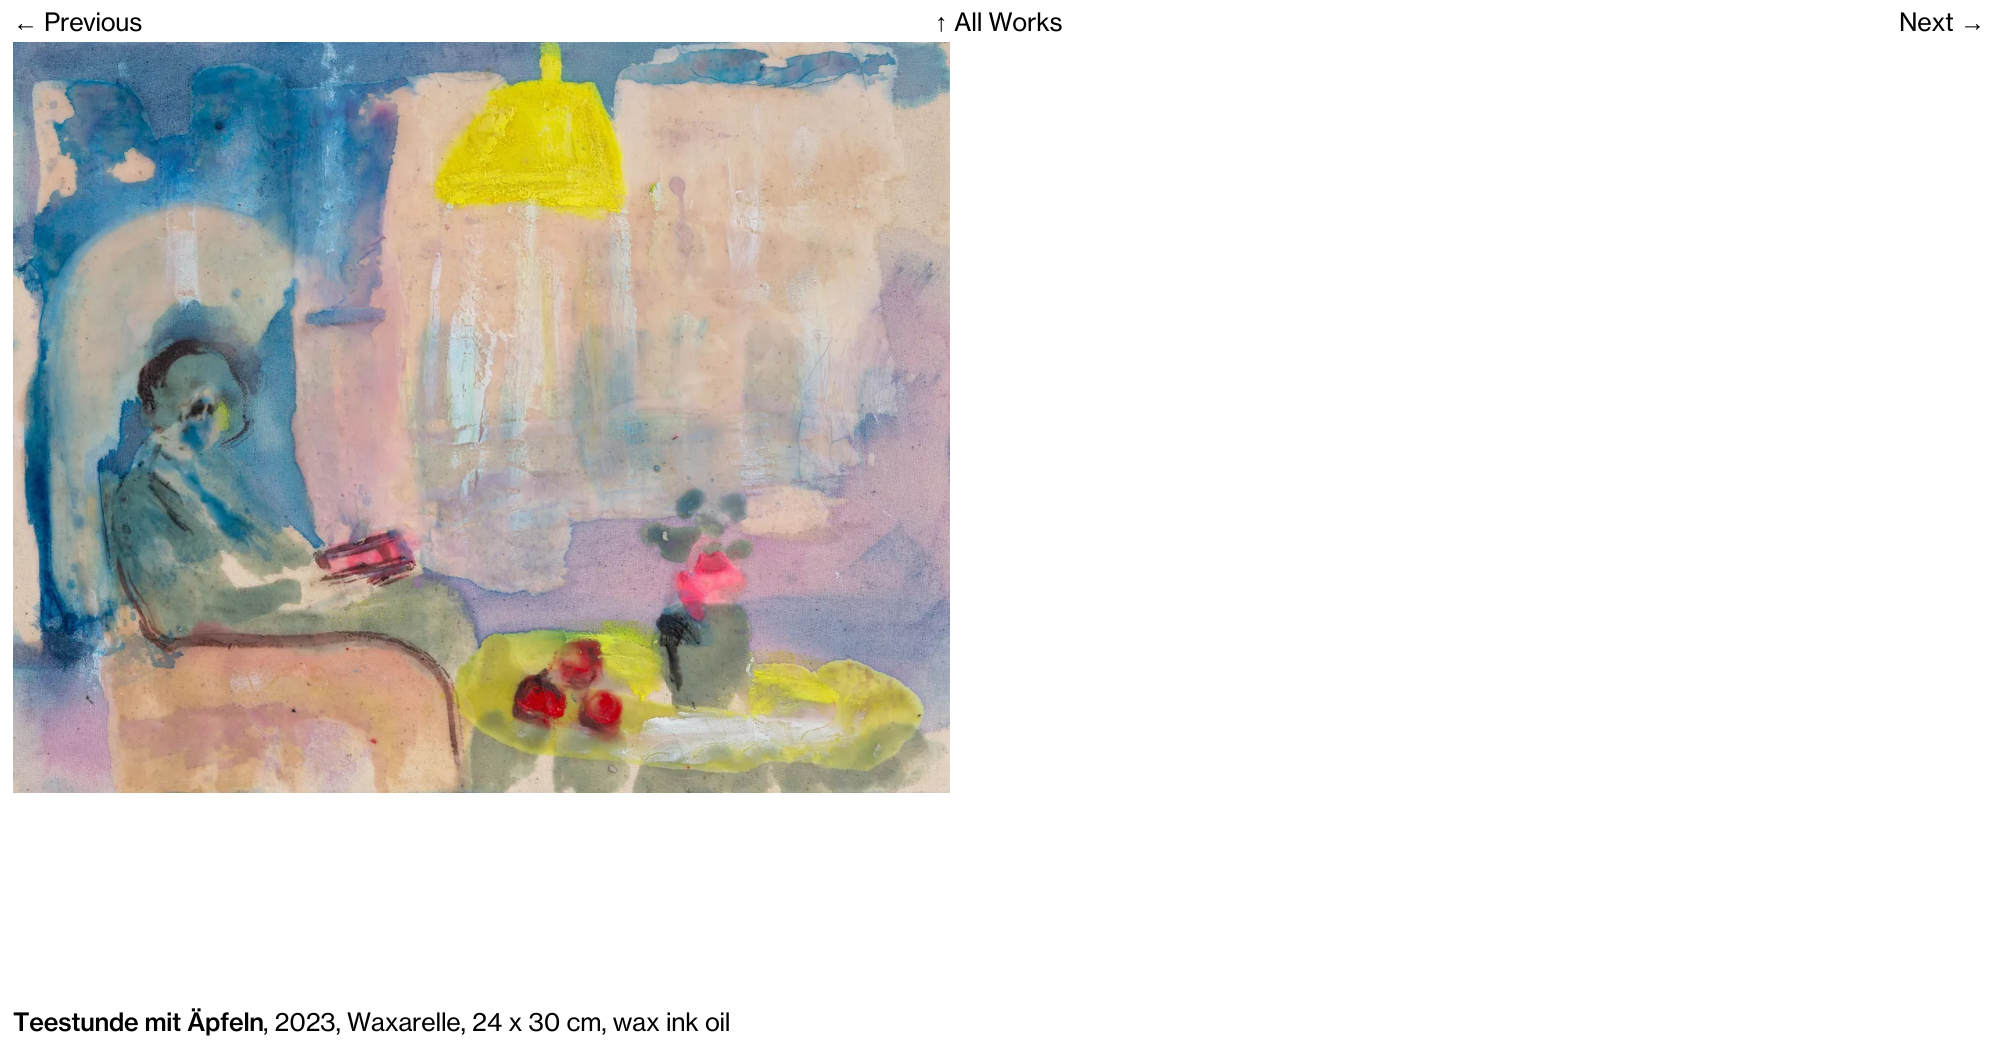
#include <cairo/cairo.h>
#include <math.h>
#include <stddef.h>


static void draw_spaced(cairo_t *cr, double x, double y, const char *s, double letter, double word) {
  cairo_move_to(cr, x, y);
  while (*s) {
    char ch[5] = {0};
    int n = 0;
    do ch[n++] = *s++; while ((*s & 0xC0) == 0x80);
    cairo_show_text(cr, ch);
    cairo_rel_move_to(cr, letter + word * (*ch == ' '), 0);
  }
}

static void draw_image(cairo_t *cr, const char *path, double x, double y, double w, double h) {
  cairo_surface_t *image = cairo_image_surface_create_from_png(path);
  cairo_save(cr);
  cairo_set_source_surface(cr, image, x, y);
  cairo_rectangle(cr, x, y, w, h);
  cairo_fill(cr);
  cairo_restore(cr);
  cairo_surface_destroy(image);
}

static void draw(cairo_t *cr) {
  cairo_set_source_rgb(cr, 1, 1, 1);
  cairo_paint(cr);
  draw_image(cr, "images/1.png", 13, 42, 937, 751);
  cairo_select_font_face(cr, "Liberation Serif", CAIRO_FONT_SLANT_NORMAL, CAIRO_FONT_WEIGHT_NORMAL);
  cairo_set_font_size(cr, 25);
  cairo_set_source_rgb(cr, 0, 0, 0);
  draw_spaced(cr, 13, 31, "←", -0.25, 0);
  cairo_select_font_face(cr, "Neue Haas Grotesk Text", CAIRO_FONT_SLANT_NORMAL, CAIRO_FONT_WEIGHT_NORMAL);
  draw_spaced(cr, 44, 31, "Previous", -0.25, 0);
  cairo_select_font_face(cr, "Liberation Serif", CAIRO_FONT_SLANT_NORMAL, CAIRO_FONT_WEIGHT_NORMAL);
  draw_spaced(cr, 935, 31, "↑", -0.25, 0);
  cairo_select_font_face(cr, "Neue Haas Grotesk Text", CAIRO_FONT_SLANT_NORMAL, CAIRO_FONT_WEIGHT_NORMAL);
  draw_spaced(cr, 954, 31, "All Works", -0.25, 0);
  draw_spaced(cr, 1899, 31, "Next", -0.25, 0);
  cairo_select_font_face(cr, "Liberation Serif", CAIRO_FONT_SLANT_NORMAL, CAIRO_FONT_WEIGHT_NORMAL);
  draw_spaced(cr, 1960, 31, "→", -0.25, 0);
  cairo_select_font_face(cr, "Neue Haas Grotesk Text Medium", CAIRO_FONT_SLANT_NORMAL, CAIRO_FONT_WEIGHT_NORMAL);
  draw_spaced(cr, 13, 1031, "Teestunde mit Äpfeln", -0.25, 0);
  cairo_select_font_face(cr, "Neue Haas Grotesk Text", CAIRO_FONT_SLANT_NORMAL, CAIRO_FONT_WEIGHT_NORMAL);
  draw_spaced(cr, 263, 1031, ", 2023, Waxarelle, 24 x 30 cm, wax ink oil", -0.25, 0);
}

int main(void) {
  cairo_surface_t *surface = cairo_image_surface_create(CAIRO_FORMAT_RGB24, 1997, 1042);
  cairo_t *cr = cairo_create(surface);
  cairo_font_options_t *options = cairo_font_options_create();
  cairo_font_options_set_hint_metrics(options, CAIRO_HINT_METRICS_OFF);
  cairo_font_options_set_hint_style(options, CAIRO_HINT_STYLE_NONE);
  cairo_set_font_options(cr, options);
  cairo_set_miter_limit(cr, 4);
  draw(cr);
  cairo_surface_write_to_png(surface, "out.png");
  cairo_font_options_destroy(options);
  cairo_destroy(cr);
  cairo_surface_destroy(surface);
  return 0;
}
